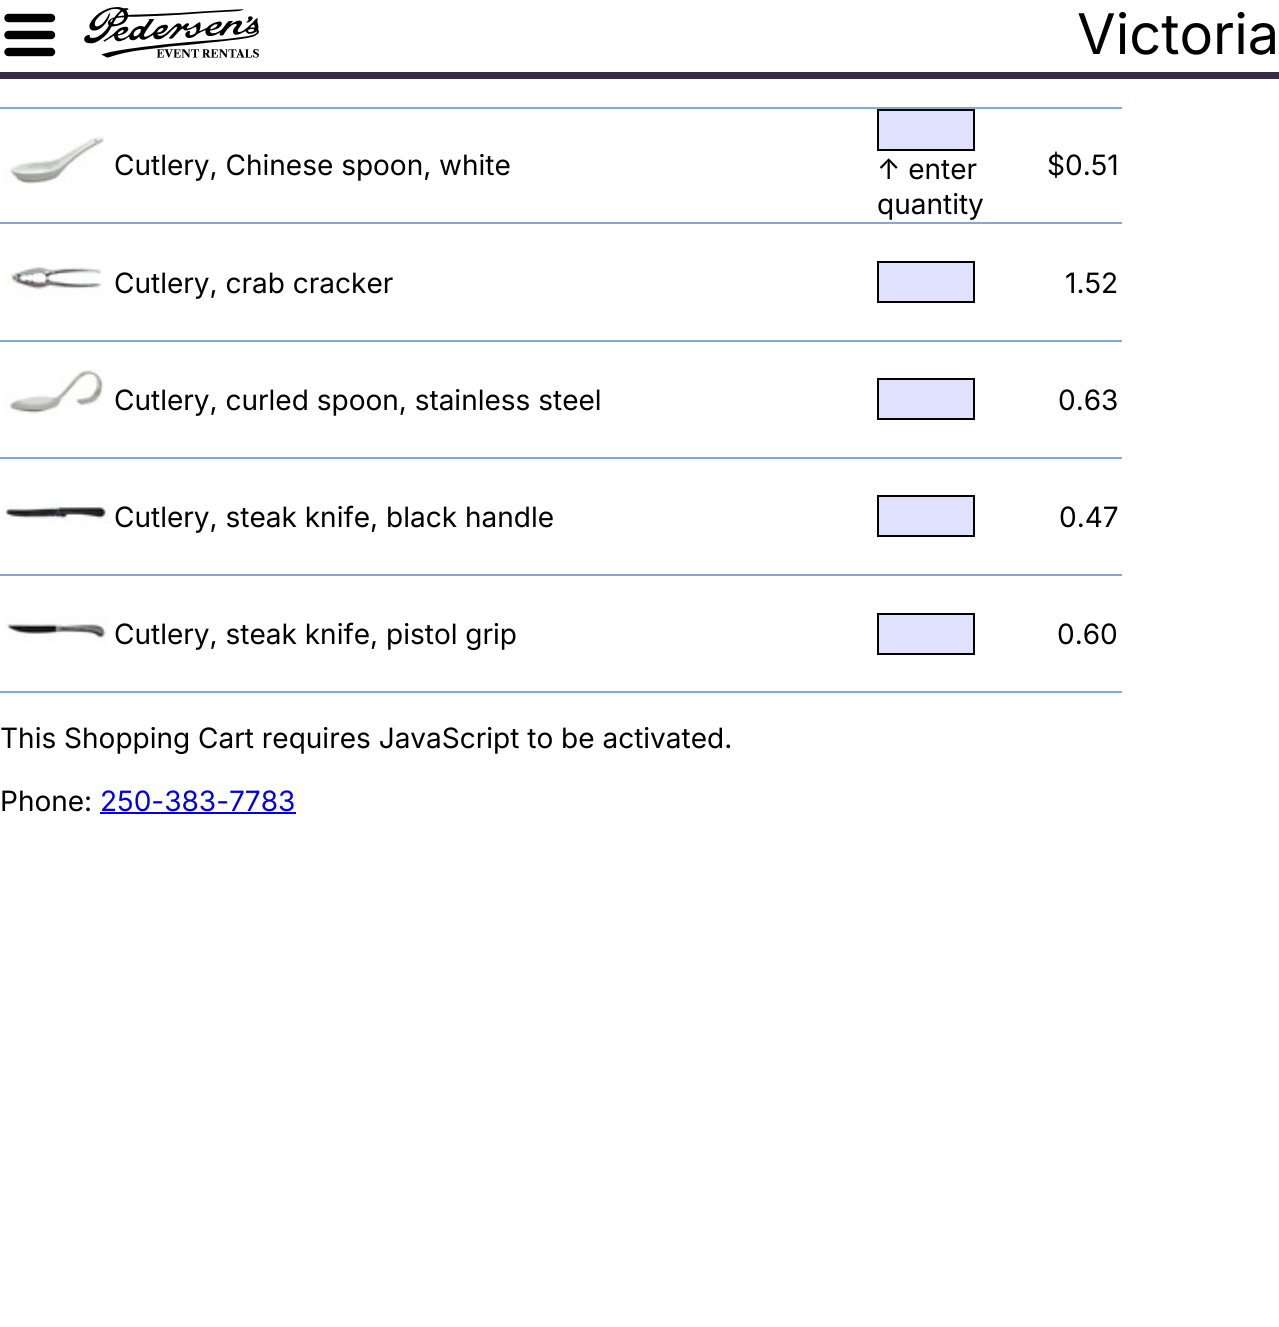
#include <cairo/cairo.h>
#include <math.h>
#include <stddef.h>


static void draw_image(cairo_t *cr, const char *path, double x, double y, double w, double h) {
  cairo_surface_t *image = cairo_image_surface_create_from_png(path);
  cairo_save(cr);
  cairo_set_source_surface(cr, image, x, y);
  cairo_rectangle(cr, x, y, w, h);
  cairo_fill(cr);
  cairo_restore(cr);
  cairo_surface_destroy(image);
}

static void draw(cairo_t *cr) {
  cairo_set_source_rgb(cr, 1, 1, 1);
  cairo_paint(cr);
  cairo_new_path(cr);
  cairo_move_to(cr, 8.5, 52);
  cairo_line_to(cr, 51, 52);
  cairo_move_to(cr, 8.5, 35);
  cairo_line_to(cr, 51, 35);
  cairo_move_to(cr, 8.5, 18);
  cairo_line_to(cr, 51, 18);
  cairo_set_source_rgb(cr, 0, 0, 0);
  cairo_set_line_width(cr, 8.4);
  cairo_set_line_cap(cr, CAIRO_LINE_CAP_ROUND);
  cairo_stroke(cr);
  draw_image(cr, "images/1.png", 84, 7, 175, 51);
  cairo_set_source_rgb(cr, 50 / 255.0, 43 / 255.0, 74 / 255.0);
  cairo_rectangle(cr, 0, 72, 1279, 7);
  cairo_fill(cr);
  cairo_set_source_rgb(cr, 128 / 255.0, 168 / 255.0, 216 / 255.0);
  cairo_rectangle(cr, 0, 107, 1122, 2);
  cairo_fill(cr);
  draw_image(cr, "images/2.png", 3, 135, 101, 50);
  cairo_set_source_rgb(cr, 224 / 255.0, 224 / 255.0, 1);
  cairo_rectangle(cr, 878, 110, 96, 40);
  cairo_fill_preserve(cr);
  cairo_set_source_rgb(cr, 0, 0, 0);
  cairo_set_line_width(cr, 2);
  cairo_set_line_cap(cr, CAIRO_LINE_CAP_BUTT);
  cairo_stroke(cr);
  cairo_set_source_rgb(cr, 128 / 255.0, 168 / 255.0, 216 / 255.0);
  cairo_rectangle(cr, 0, 222, 1122, 2);
  cairo_fill(cr);
  draw_image(cr, "images/3.png", 5, 263, 97, 36);
  cairo_set_source_rgb(cr, 224 / 255.0, 224 / 255.0, 1);
  cairo_rectangle(cr, 878, 262, 96, 40);
  cairo_fill_preserve(cr);
  cairo_set_source_rgb(cr, 0, 0, 0);
  cairo_stroke(cr);
  cairo_set_source_rgb(cr, 128 / 255.0, 168 / 255.0, 216 / 255.0);
  cairo_rectangle(cr, 0, 340, 1122, 2);
  cairo_fill(cr);
  draw_image(cr, "images/4.png", 5, 369, 99, 47);
  cairo_set_source_rgb(cr, 224 / 255.0, 224 / 255.0, 1);
  cairo_rectangle(cr, 878, 379, 96, 40);
  cairo_fill_preserve(cr);
  cairo_set_source_rgb(cr, 0, 0, 0);
  cairo_stroke(cr);
  cairo_set_source_rgb(cr, 128 / 255.0, 168 / 255.0, 216 / 255.0);
  cairo_rectangle(cr, 0, 457, 1122, 2);
  cairo_fill(cr);
  draw_image(cr, "images/5.png", 3, 500, 106, 25);
  cairo_set_source_rgb(cr, 224 / 255.0, 224 / 255.0, 1);
  cairo_rectangle(cr, 878, 496, 96, 40);
  cairo_fill_preserve(cr);
  cairo_set_source_rgb(cr, 0, 0, 0);
  cairo_stroke(cr);
  cairo_set_source_rgb(cr, 128 / 255.0, 168 / 255.0, 216 / 255.0);
  cairo_rectangle(cr, 0, 574, 1122, 2);
  cairo_fill(cr);
  cairo_rectangle(cr, 0, 691, 1122, 2);
  cairo_fill(cr);
  draw_image(cr, "images/6.png", 4, 616, 104, 28);
  cairo_set_source_rgb(cr, 224 / 255.0, 224 / 255.0, 1);
  cairo_rectangle(cr, 878, 614, 96, 40);
  cairo_fill_preserve(cr);
  cairo_set_source_rgb(cr, 0, 0, 0);
  cairo_stroke(cr);
  cairo_set_source_rgb(cr, 0, 0, 238 / 255.0);
  cairo_rectangle(cr, 100, 812, 196, 2);
  cairo_fill(cr);
  cairo_select_font_face(cr, "Inter", CAIRO_FONT_SLANT_NORMAL, CAIRO_FONT_WEIGHT_NORMAL);
  cairo_set_font_size(cr, 56);
  cairo_set_source_rgb(cr, 0, 0, 0);
  cairo_move_to(cr, 1077, 54);
  cairo_show_text(cr, "Victoria");
  cairo_set_font_size(cr, 28);
  cairo_move_to(cr, 114, 175);
  cairo_show_text(cr, "Cutlery, Chinese spoon, white");
  cairo_move_to(cr, 877, 179);
  cairo_show_text(cr, "↑ enter");
  cairo_move_to(cr, 877, 214);
  cairo_show_text(cr, "quantity");
  cairo_move_to(cr, 1047, 175);
  cairo_show_text(cr, "$0.51");
  cairo_move_to(cr, 114, 293);
  cairo_show_text(cr, "Cutlery, crab cracker");
  cairo_move_to(cr, 1065, 293);
  cairo_show_text(cr, "1.52");
  cairo_move_to(cr, 114, 410);
  cairo_show_text(cr, "Cutlery, curled spoon, stainless steel");
  cairo_move_to(cr, 1058, 410);
  cairo_show_text(cr, "0.63");
  cairo_move_to(cr, 114, 527);
  cairo_show_text(cr, "Cutlery, steak knife, black handle");
  cairo_move_to(cr, 1059, 527);
  cairo_show_text(cr, "0.47");
  cairo_move_to(cr, 114, 644);
  cairo_show_text(cr, "Cutlery, steak knife, pistol grip");
  cairo_move_to(cr, 1057, 644);
  cairo_show_text(cr, "0.60");
  cairo_move_to(cr, 0, 748);
  cairo_show_text(cr, "This Shopping Cart requires JavaScript to be activated.");
  cairo_move_to(cr, 0, 811);
  cairo_show_text(cr, "Phone:");
  cairo_set_source_rgb(cr, 0, 0, 238 / 255.0);
  cairo_move_to(cr, 100, 811);
  cairo_show_text(cr, "250-383-7783");
}

int main(void) {
  cairo_surface_t *surface = cairo_image_surface_create(CAIRO_FORMAT_RGB24, 1279, 1327);
  cairo_t *cr = cairo_create(surface);
  cairo_font_options_t *options = cairo_font_options_create();
  cairo_font_options_set_hint_metrics(options, CAIRO_HINT_METRICS_OFF);
  cairo_font_options_set_hint_style(options, CAIRO_HINT_STYLE_NONE);
  cairo_set_font_options(cr, options);
  cairo_set_miter_limit(cr, 4);
  draw(cr);
  cairo_surface_write_to_png(surface, "out.png");
  cairo_font_options_destroy(options);
  cairo_destroy(cr);
  cairo_surface_destroy(surface);
  return 0;
}
